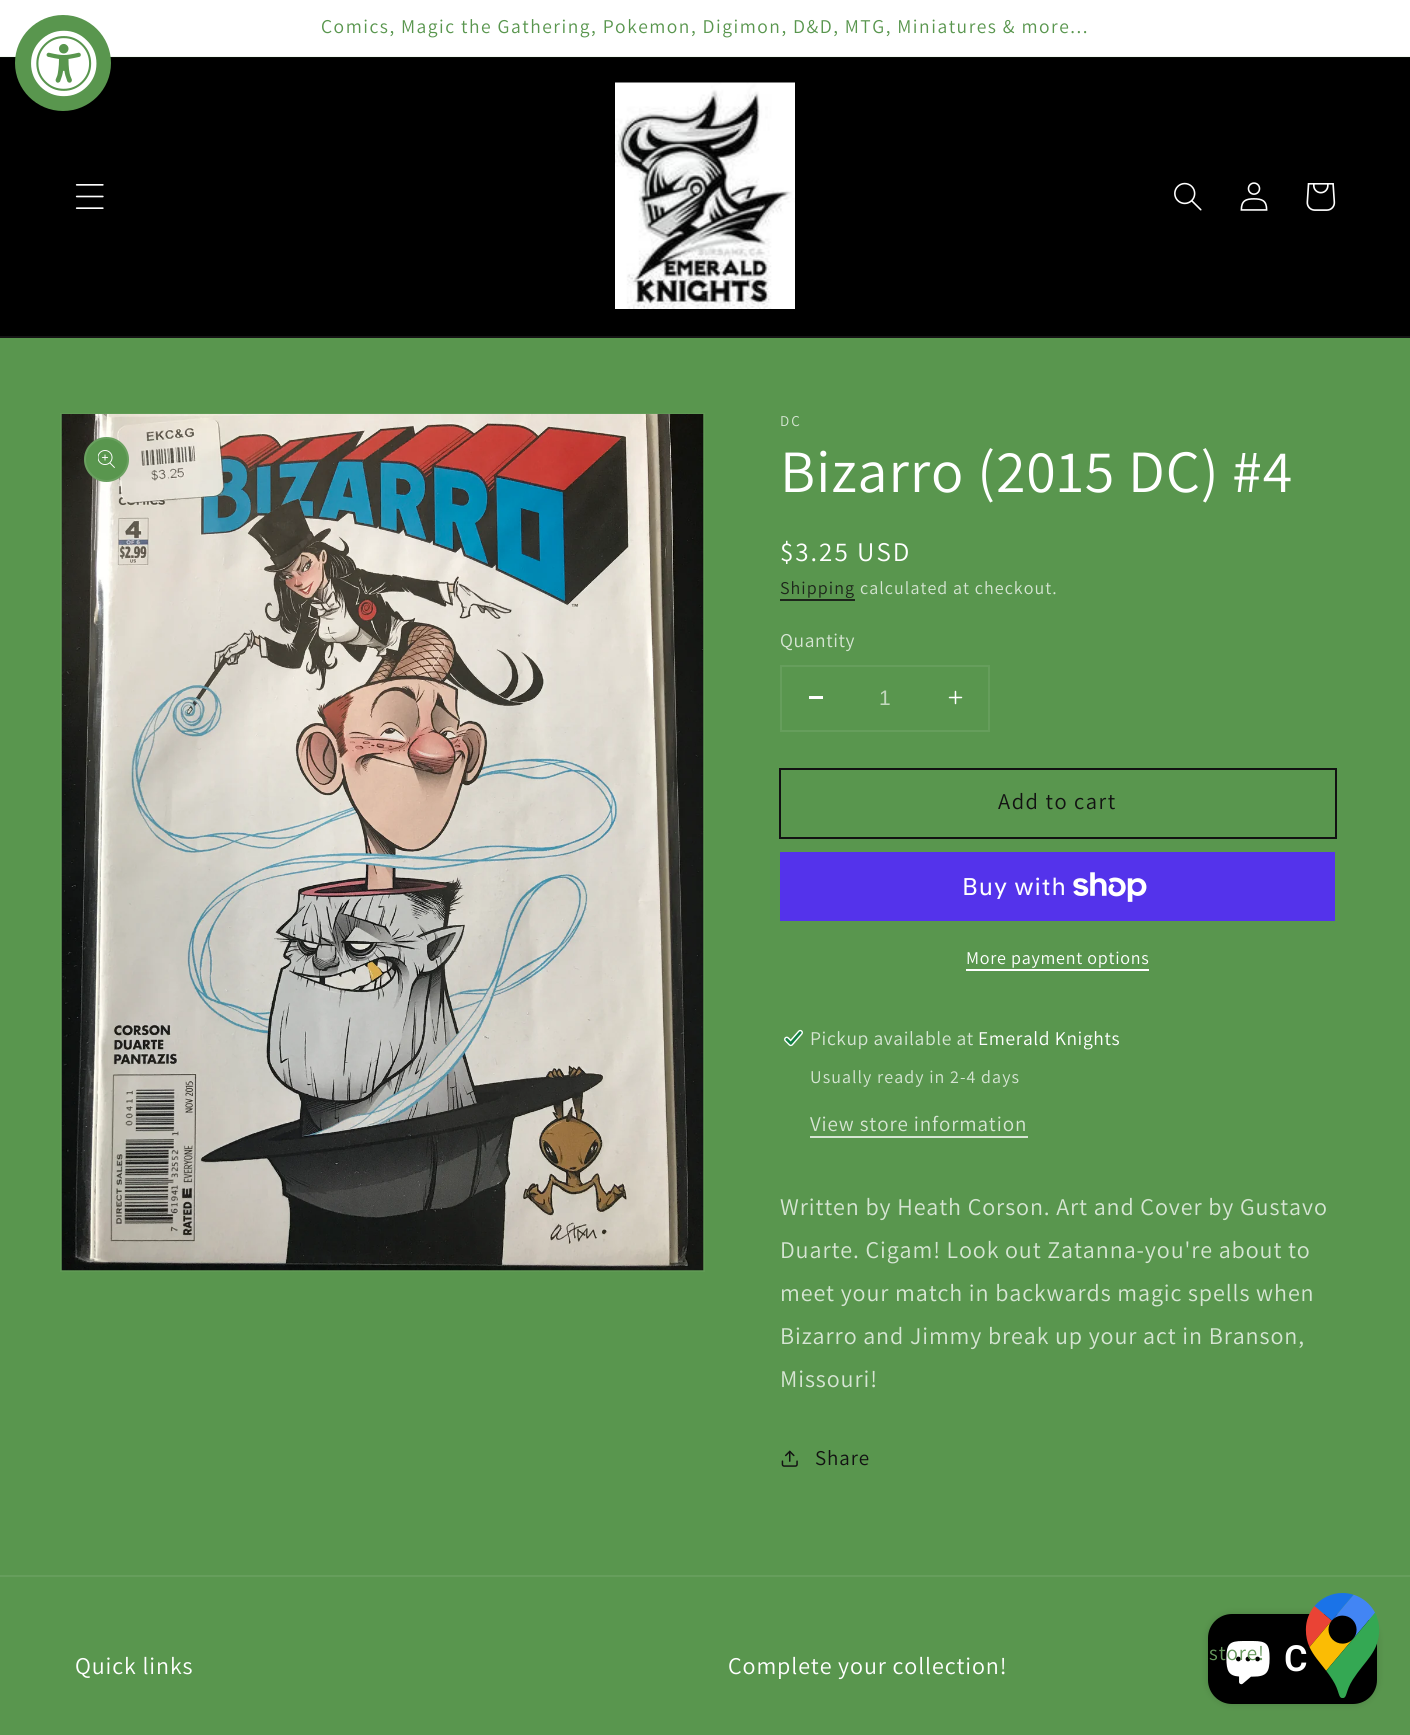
#include <cairo/cairo.h>
#include <math.h>
#include <stddef.h>


static void draw_spaced(cairo_t *cr, double x, double y, const char *s, double letter, double word) {
  cairo_move_to(cr, x, y);
  while (*s) {
    char ch[5] = {0};
    int n = 0;
    do ch[n++] = *s++; while ((*s & 0xC0) == 0x80);
    cairo_show_text(cr, ch);
    cairo_rel_move_to(cr, letter + word * (*ch == ' '), 0);
  }
}

static void rounded_rect(cairo_t *cr, double x, double y, double w, double h, double r) {
  cairo_new_sub_path(cr);
  cairo_arc(cr, x + w - r, y + h - r, r, 0, M_PI / 2);
  cairo_arc(cr, x + r, y + h - r, r, M_PI / 2, M_PI);
  cairo_arc(cr, x + r, y + r, r, M_PI, 1.5 * M_PI);
  cairo_arc(cr, x + w - r, y + r, r, 1.5 * M_PI, 2 * M_PI);
  cairo_close_path(cr);
}

static void draw_shadow(cairo_t *cr, double x, double y, double w, double h, double r, double blur, double alpha) {
  cairo_push_group_with_content(cr, CAIRO_CONTENT_ALPHA);
  cairo_set_operator(cr, CAIRO_OPERATOR_SOURCE);
  for (int i = 15; i >= -15 && fmin(w, h) + blur * i / 3 > 0; i -= 2) {
    double e = blur * i / 6;
    cairo_set_source_rgba(cr, 0, 0, 0, alpha * erfc((i - 1) / 8.5) / 2);
    rounded_rect(cr, x - e, y - e, w + 2 * e, h + 2 * e, fmax(0, fmin(r + e + blur * .6, fmin(w, h) / 2 + e)));
    cairo_fill(cr);
  }
  cairo_pattern_t *soft = cairo_pop_group(cr);
  cairo_mask(cr, soft);
  cairo_pattern_destroy(soft);
}

static void draw_image(cairo_t *cr, const char *path, double x, double y, double w, double h) {
  cairo_surface_t *image = cairo_image_surface_create_from_png(path);
  cairo_save(cr);
  cairo_set_source_surface(cr, image, x, y);
  cairo_rectangle(cr, x, y, w, h);
  cairo_fill(cr);
  cairo_restore(cr);
  cairo_surface_destroy(image);
}

static void draw(cairo_t *cr) {
  cairo_set_source_rgb(cr, 89 / 255.0, 150 / 255.0, 78 / 255.0);
  cairo_paint(cr);
  cairo_set_source_rgb(cr, 1, 1, 1);
  cairo_rectangle(cr, 0, 0, 1410, 56);
  cairo_fill(cr);
  cairo_set_source_rgb(cr, 242 / 255.0, 247 / 255.0, 241 / 255.0);
  cairo_rectangle(cr, 0, 56, 1410, 1);
  cairo_fill(cr);
  cairo_set_source_rgb(cr, 0, 0, 0);
  cairo_rectangle(cr, 0, 58, 1410, 278);
  cairo_fill(cr);
  cairo_set_source_rgb(cr, 7 / 255.0, 12 / 255.0, 6 / 255.0);
  cairo_rectangle(cr, 0, 57, 1410, 1);
  cairo_fill(cr);
  cairo_set_source_rgb(cr, 89 / 255.0, 150 / 255.0, 78 / 255.0);
  cairo_arc(cr, 63, 63, 48, 0, 2 * M_PI);
  cairo_fill(cr);
  draw_image(cr, "images/1.png", 31, 30, 66, 67);
  cairo_set_source_rgb(cr, 20 / 255.0, 20 / 255.0, 20 / 255.0);
  cairo_rectangle(cr, 0, 336, 1410, 2);
  cairo_fill(cr);
  draw_image(cr, "images/2.png", 75, 184, 29, 25);
  draw_image(cr, "images/3.png", 615, 82, 180, 227);
  draw_image(cr, "images/4.png", 1174, 182, 28, 29);
  draw_image(cr, "images/5.png", 1240, 182, 28, 29);
  draw_image(cr, "images/6.png", 1306, 183, 30, 28);
  cairo_rectangle(cr, 61, 414, 643, 857);
  cairo_set_source_rgb(cr, 96 / 255.0, 154 / 255.0, 85 / 255.0);
  cairo_stroke(cr);
  draw_image(cr, "images/7.png", 61, 414, 643, 857);
  cairo_set_source_rgb(cr, 89 / 255.0, 150 / 255.0, 78 / 255.0);
  cairo_arc(cr, 106.5, 459.5, 22.5, 0, 2 * M_PI);
  cairo_fill(cr);
  cairo_arc(cr, 106.5, 459.5, 21.5, 0, 2 * M_PI);
  cairo_set_source_rgba(cr, 1, 1, 1, 0.1);
  cairo_stroke(cr);
  draw_image(cr, "images/8.png", 98, 450, 17, 18);
  cairo_set_source_rgb(cr, 29 / 255.0, 38 / 255.0, 27 / 255.0);
  cairo_rectangle(cr, 780, 599, 75, 2);
  cairo_fill(cr);
  cairo_rectangle(cr, 781, 666, 208, 65);
  cairo_set_source_rgb(cr, 102 / 255.0, 158 / 255.0, 92 / 255.0);
  cairo_stroke(cr);
  cairo_set_source_rgb(cr, 1, 1, 1);
  cairo_rectangle(cr, 809, 696, 14, 3);
  cairo_fill(cr);
  draw_image(cr, "images/9.png", 948, 690, 15, 15);
  cairo_rectangle(cr, 780, 769, 556, 69);
  cairo_set_source_rgb(cr, 18 / 255.0, 18 / 255.0, 18 / 255.0);
  cairo_stroke(cr);
  cairo_set_source_rgb(cr, 84 / 255.0, 51 / 255.0, 235 / 255.0);
  cairo_rectangle(cr, 780, 852, 555, 69);
  cairo_fill(cr);
  draw_image(cr, "images/10.png", 1073, 872, 74, 30);
  cairo_set_source_rgb(cr, 1, 1, 1);
  cairo_rectangle(cr, 966, 969, 183, 2);
  cairo_fill(cr);
  draw_image(cr, "images/11.png", 784, 1029, 19, 18);
  cairo_set_source_rgb(cr, 214 / 255.0, 229 / 255.0, 211 / 255.0);
  cairo_rectangle(cr, 810, 1136, 218, 2);
  cairo_fill(cr);
  draw_image(cr, "images/12.png", 781, 1450, 17, 17);
  cairo_set_source_rgb(cr, 102 / 255.0, 158 / 255.0, 92 / 255.0);
  cairo_rectangle(cr, 0, 1575, 1410, 2);
  cairo_fill(cr);
  cairo_set_source_rgb(cr, 0, 0, 0);
  draw_shadow(cr, 1208, 1614, 169, 90, 24, 4, 0.15);
  cairo_set_source_rgb(cr, 0, 0, 0);
  rounded_rect(cr, 1208, 1614, 169, 90, 24);
  cairo_fill(cr);
  draw_image(cr, "images/14.png", 1226, 1641, 44, 44);
  cairo_select_font_face(cr, "Assistant", CAIRO_FONT_SLANT_NORMAL, CAIRO_FONT_WEIGHT_NORMAL);
  cairo_set_font_size(cr, 19.5);
  cairo_set_source_rgb(cr, 89 / 255.0, 150 / 255.0, 78 / 255.0);
  draw_spaced(cr, 321, 33, "Comics, Magic the Gathering, Pokemon, Digimon, D&D, MTG, Miniatures & more...", 1.5, 0);
  cairo_set_font_size(cr, 15);
  cairo_set_source_rgb(cr, 214 / 255.0, 229 / 255.0, 211 / 255.0);
  draw_spaced(cr, 780, 426, "DC", 2, 0);
  cairo_set_font_size(cr, 60);
  cairo_set_source_rgb(cr, 1, 1, 1);
  draw_spaced(cr, 780, 492, "Bizarro (2015 DC) #4", 0.9, 0);
  cairo_set_font_size(cr, 27);
  draw_spaced(cr, 780, 561, "$3.25 USD", 2, 0);
  cairo_set_font_size(cr, 18);
  cairo_set_source_rgb(cr, 29 / 255.0, 38 / 255.0, 27 / 255.0);
  draw_spaced(cr, 780, 594, "Shipping", 1.05, 0);
  cairo_set_source_rgb(cr, 214 / 255.0, 229 / 255.0, 211 / 255.0);
  draw_spaced(cr, 860, 594, "calculated at checkout.", 1.05, 0);
  cairo_set_font_size(cr, 19.5);
  draw_spaced(cr, 780, 647, "Quantity", 0.6, 0);
  cairo_select_font_face(cr, "Liberation Sans", CAIRO_FONT_SLANT_NORMAL, CAIRO_FONT_WEIGHT_NORMAL);
  cairo_set_font_size(cr, 21);
  cairo_set_source_rgb(cr, 195 / 255.0, 217 / 255.0, 191 / 255.0);
  cairo_move_to(cr, 879, 705);
  cairo_show_text(cr, "1");
  cairo_select_font_face(cr, "Assistant", CAIRO_FONT_SLANT_NORMAL, CAIRO_FONT_WEIGHT_NORMAL);
  cairo_set_font_size(cr, 22.5);
  cairo_set_source_rgb(cr, 18 / 255.0, 18 / 255.0, 18 / 255.0);
  draw_spaced(cr, 998, 809, "Add to cart", 1.5, 0);
  cairo_select_font_face(cr, "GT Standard", CAIRO_FONT_SLANT_NORMAL, CAIRO_FONT_WEIGHT_NORMAL);
  cairo_set_font_size(cr, 24);
  cairo_set_source_rgb(cr, 1, 1, 1);
  draw_spaced(cr, 962, 895, "Buy with", 0.9, 0);
  cairo_select_font_face(cr, "Assistant", CAIRO_FONT_SLANT_NORMAL, CAIRO_FONT_WEIGHT_NORMAL);
  cairo_set_font_size(cr, 18);
  draw_spaced(cr, 966, 964, "More payment options", 0.75, 0);
  cairo_set_font_size(cr, 19.5);
  cairo_set_source_rgb(cr, 214 / 255.0, 229 / 255.0, 211 / 255.0);
  draw_spaced(cr, 810, 1045, "Pickup available at", 0.6, 0);
  cairo_set_source_rgb(cr, 1, 1, 1);
  draw_spaced(cr, 978, 1045, "Emerald Knights", 0.6, 0);
  cairo_set_font_size(cr, 18);
  cairo_set_source_rgb(cr, 214 / 255.0, 229 / 255.0, 211 / 255.0);
  draw_spaced(cr, 810, 1083, "Usually ready in 2-4 days", 1.05, 0);
  cairo_set_font_size(cr, 21);
  draw_spaced(cr, 810, 1131, "View store information", 0.9, 0);
  cairo_set_font_size(cr, 24);
  draw_spaced(cr, 780, 1215, "Written by Heath Corson. Art and Cover by Gustavo", 0.9, 0);
  draw_spaced(cr, 780, 1258, "Duarte. Cigam! Look out Zatanna-you're about to", 0.9, 0);
  draw_spaced(cr, 780, 1301, "meet your match in backwards magic spells when", 0.9, 0);
  draw_spaced(cr, 780, 1344, "Bizarro and Jimmy break up your act in Branson,", 0.9, 0);
  draw_spaced(cr, 780, 1387, "Missouri!", 0.9, 0);
  cairo_set_font_size(cr, 21);
  cairo_set_source_rgb(cr, 18 / 255.0, 18 / 255.0, 18 / 255.0);
  draw_spaced(cr, 815, 1465, "Share", 0.9, 0);
  cairo_set_font_size(cr, 24);
  cairo_set_source_rgb(cr, 1, 1, 1);
  draw_spaced(cr, 75, 1674, "Quick links", 0.9, 0);
  draw_spaced(cr, 728, 1674, "Complete your collection!", 0.9, 0);
  cairo_set_font_size(cr, 21);
  cairo_set_source_rgb(cr, 102 / 255.0, 152 / 255.0, 93 / 255.0);
  draw_spaced(cr, 1209, 1660, "store!", 0.9, 0);
  cairo_select_font_face(cr, "Roboto SemiBold", CAIRO_FONT_SLANT_NORMAL, CAIRO_FONT_WEIGHT_NORMAL);
  cairo_set_font_size(cr, 36);
  cairo_set_source_rgb(cr, 1, 1, 1);
  cairo_move_to(cr, 1284, 1671);
  cairo_show_text(cr, "C");
  draw_image(cr, "images/13.png", 1305, 1593, 75, 105);
}

int main(void) {
  cairo_surface_t *surface = cairo_image_surface_create(CAIRO_FORMAT_RGB24, 1410, 1735);
  cairo_t *cr = cairo_create(surface);
  cairo_font_options_t *options = cairo_font_options_create();
  cairo_font_options_set_hint_metrics(options, CAIRO_HINT_METRICS_OFF);
  cairo_font_options_set_hint_style(options, CAIRO_HINT_STYLE_NONE);
  cairo_set_font_options(cr, options);
  cairo_set_miter_limit(cr, 4);
  draw(cr);
  cairo_surface_write_to_png(surface, "out.png");
  cairo_font_options_destroy(options);
  cairo_destroy(cr);
  cairo_surface_destroy(surface);
  return 0;
}
